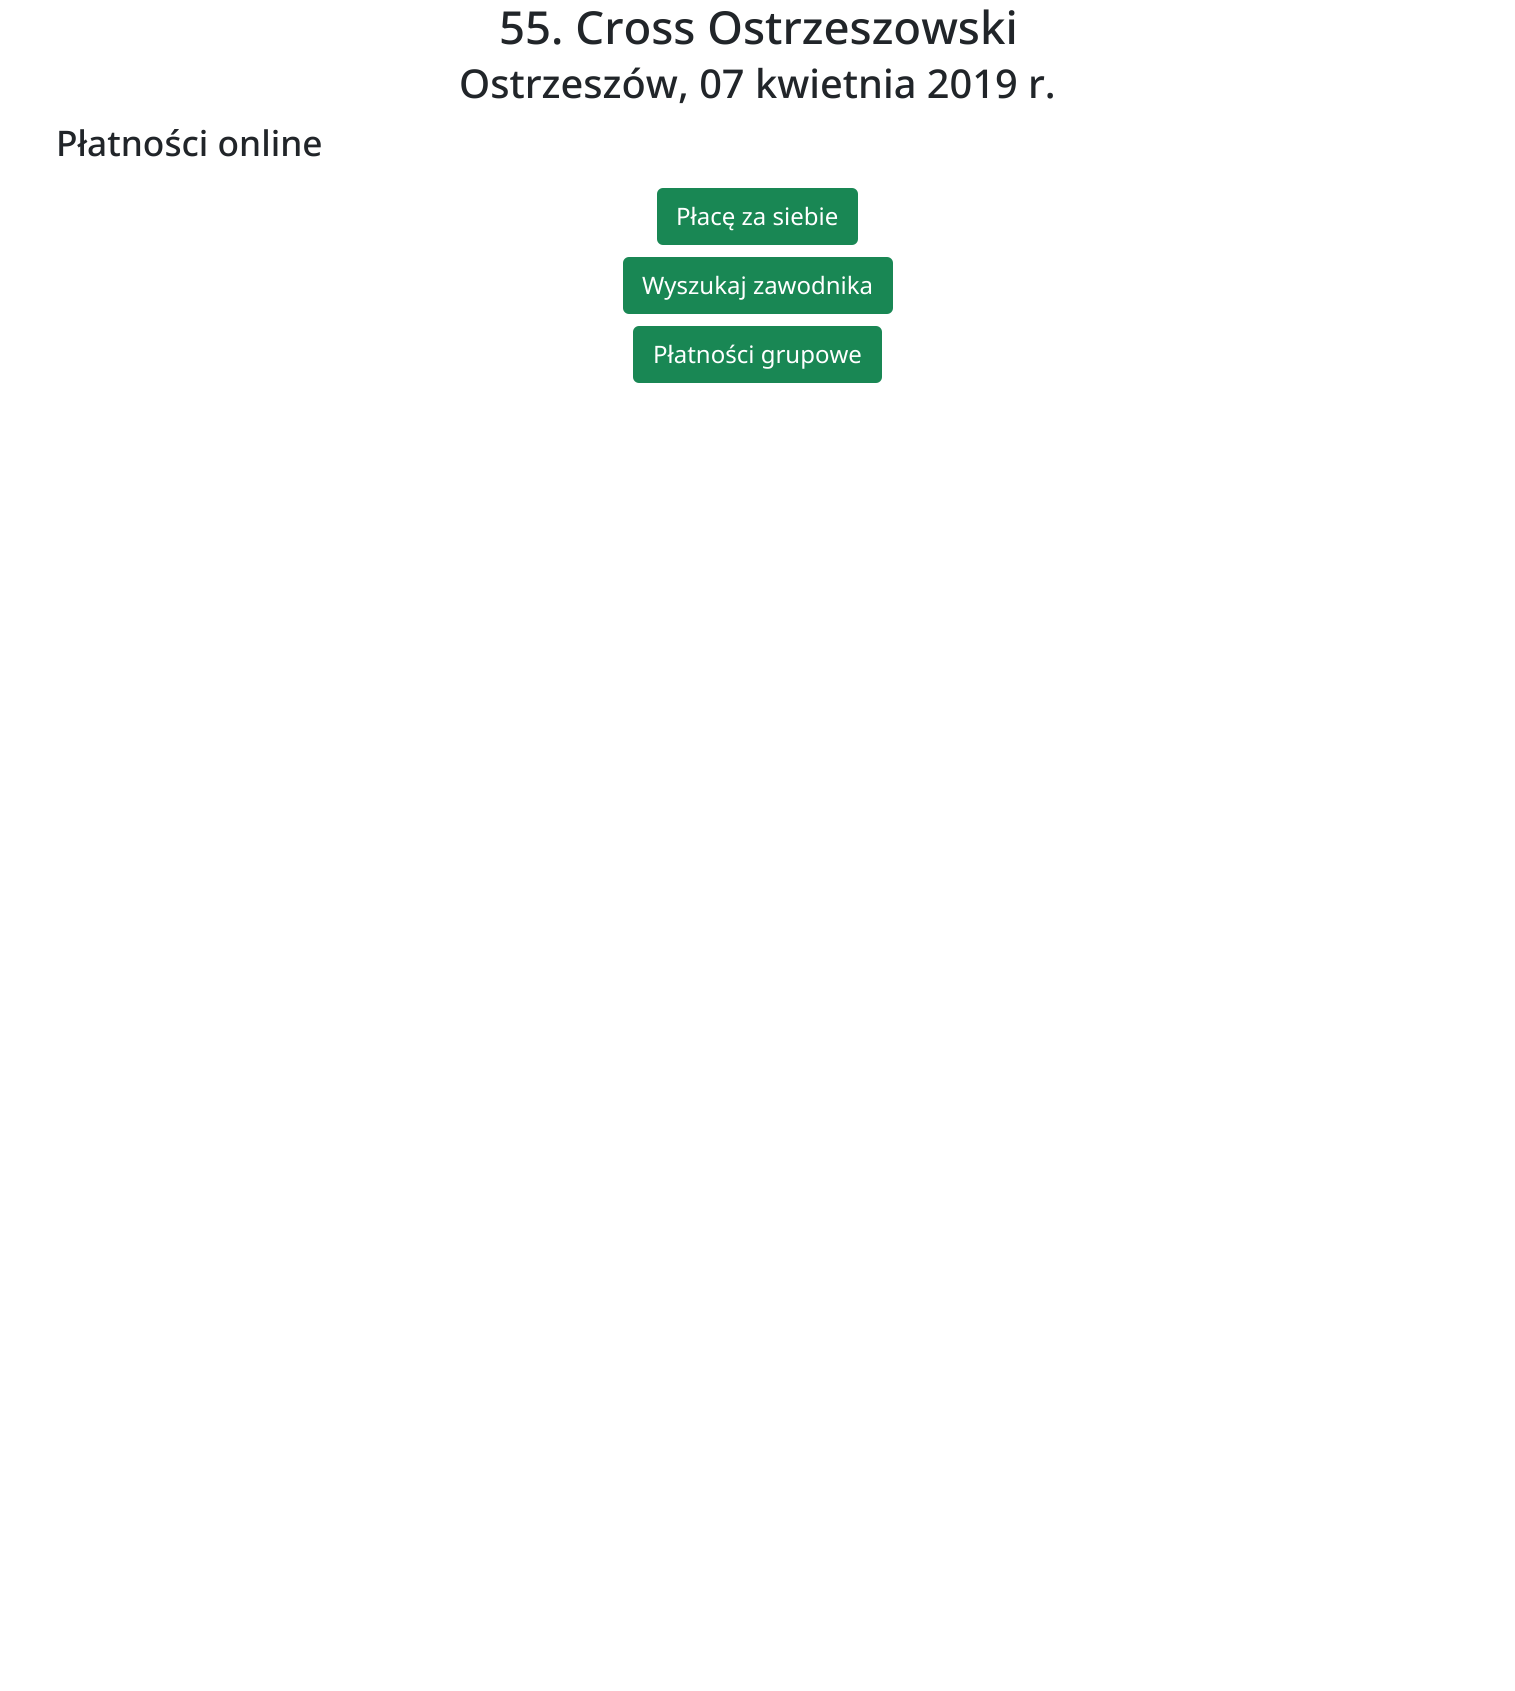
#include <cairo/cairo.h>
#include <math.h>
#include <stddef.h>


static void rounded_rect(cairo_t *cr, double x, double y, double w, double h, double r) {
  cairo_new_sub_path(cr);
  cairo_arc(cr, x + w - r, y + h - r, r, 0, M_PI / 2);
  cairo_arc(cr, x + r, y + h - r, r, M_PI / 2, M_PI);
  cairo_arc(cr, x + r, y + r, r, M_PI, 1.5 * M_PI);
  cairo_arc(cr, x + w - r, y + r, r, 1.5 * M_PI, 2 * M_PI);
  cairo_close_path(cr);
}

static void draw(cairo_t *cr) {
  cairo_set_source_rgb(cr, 1, 1, 1);
  cairo_paint(cr);
  cairo_set_source_rgb(cr, 25 / 255.0, 135 / 255.0, 84 / 255.0);
  rounded_rect(cr, 658, 189, 199, 55, 5);
  cairo_fill_preserve(cr);
  cairo_stroke(cr);
  rounded_rect(cr, 624, 258, 268, 55, 5);
  cairo_fill_preserve(cr);
  cairo_stroke(cr);
  rounded_rect(cr, 634, 327, 247, 55, 5);
  cairo_fill_preserve(cr);
  cairo_stroke(cr);
  cairo_select_font_face(cr, "Noto Sans Medium", CAIRO_FONT_SLANT_NORMAL, CAIRO_FONT_WEIGHT_NORMAL);
  cairo_set_font_size(cr, 45.5);
  cairo_set_source_rgb(cr, 33 / 255.0, 37 / 255.0, 41 / 255.0);
  cairo_move_to(cr, 499, 44);
  cairo_show_text(cr, "55. Cross Ostrzeszowski");
  cairo_set_font_size(cr, 39.75);
  cairo_move_to(cr, 459, 98);
  cairo_show_text(cr, "Ostrzeszów, 07 kwietnia 2019 r.");
  cairo_set_font_size(cr, 35.25);
  cairo_move_to(cr, 56, 156);
  cairo_show_text(cr, "Płatności online");
  cairo_select_font_face(cr, "Noto Sans", CAIRO_FONT_SLANT_NORMAL, CAIRO_FONT_WEIGHT_NORMAL);
  cairo_set_font_size(cr, 24);
  cairo_set_source_rgb(cr, 1, 1, 1);
  cairo_move_to(cr, 676, 225);
  cairo_show_text(cr, "Płacę za siebie");
  cairo_move_to(cr, 642, 294);
  cairo_show_text(cr, "Wyszukaj zawodnika");
  cairo_move_to(cr, 653, 363);
  cairo_show_text(cr, "Płatności grupowe");
}

int main(void) {
  cairo_surface_t *surface = cairo_image_surface_create(CAIRO_FORMAT_RGB24, 1515, 1691);
  cairo_t *cr = cairo_create(surface);
  cairo_font_options_t *options = cairo_font_options_create();
  cairo_font_options_set_hint_metrics(options, CAIRO_HINT_METRICS_OFF);
  cairo_font_options_set_hint_style(options, CAIRO_HINT_STYLE_NONE);
  cairo_set_font_options(cr, options);
  cairo_set_miter_limit(cr, 4);
  draw(cr);
  cairo_surface_write_to_png(surface, "out.png");
  cairo_font_options_destroy(options);
  cairo_destroy(cr);
  cairo_surface_destroy(surface);
  return 0;
}
